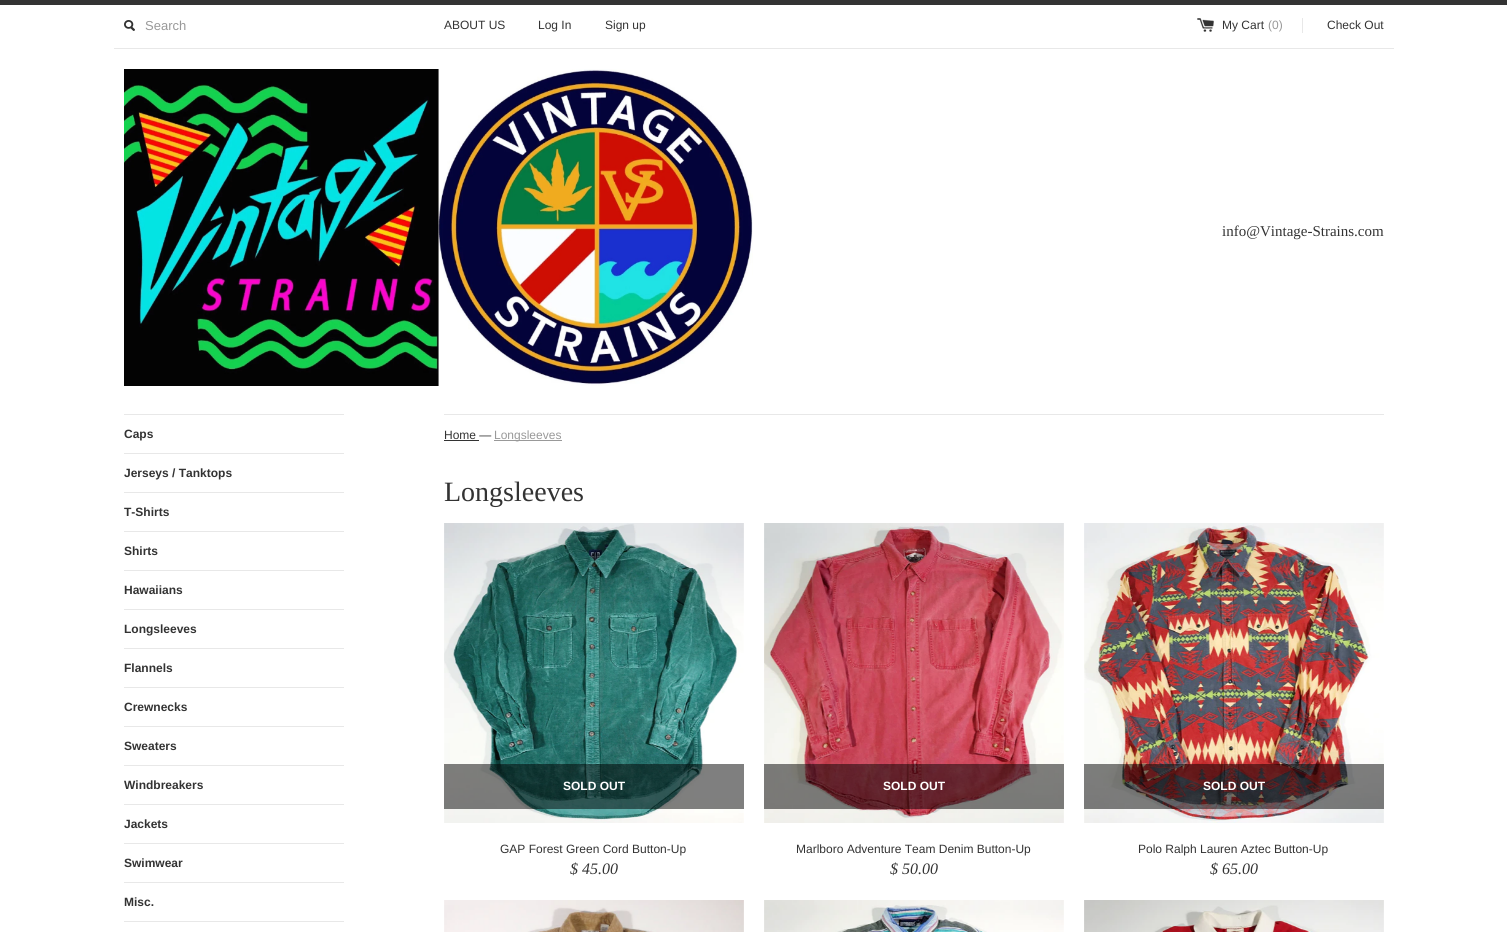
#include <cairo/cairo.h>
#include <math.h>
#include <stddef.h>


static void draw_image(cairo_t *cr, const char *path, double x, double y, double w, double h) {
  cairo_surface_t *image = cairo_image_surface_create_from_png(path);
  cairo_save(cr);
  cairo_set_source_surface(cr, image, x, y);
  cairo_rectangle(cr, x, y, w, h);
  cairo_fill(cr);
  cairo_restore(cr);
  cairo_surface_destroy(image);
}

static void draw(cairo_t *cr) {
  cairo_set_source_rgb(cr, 1, 1, 1);
  cairo_paint(cr);
  cairo_set_source_rgb(cr, 51 / 255.0, 51 / 255.0, 51 / 255.0);
  cairo_rectangle(cr, 0, 0, 1507, 5);
  cairo_fill(cr);
  cairo_set_source_rgb(cr, 232 / 255.0, 232 / 255.0, 232 / 255.0);
  cairo_rectangle(cr, 114, 48, 1280, 1);
  cairo_fill(cr);
  draw_image(cr, "images/1.png", 124, 20, 11, 11);
  draw_image(cr, "images/2.png", 1197, 18, 17, 14);
  cairo_rectangle(cr, 1302, 18, 1, 15);
  cairo_fill(cr);
  draw_image(cr, "images/3.png", 124, 69, 629, 317);
  cairo_rectangle(cr, 124, 414, 220, 1);
  cairo_fill(cr);
  cairo_rectangle(cr, 124, 453, 220, 1);
  cairo_fill(cr);
  cairo_rectangle(cr, 124, 492, 220, 1);
  cairo_fill(cr);
  cairo_rectangle(cr, 124, 531, 220, 1);
  cairo_fill(cr);
  cairo_rectangle(cr, 124, 570, 220, 1);
  cairo_fill(cr);
  cairo_rectangle(cr, 124, 609, 220, 1);
  cairo_fill(cr);
  cairo_rectangle(cr, 124, 648, 220, 1);
  cairo_fill(cr);
  cairo_rectangle(cr, 124, 687, 220, 1);
  cairo_fill(cr);
  cairo_rectangle(cr, 124, 726, 220, 1);
  cairo_fill(cr);
  cairo_rectangle(cr, 124, 765, 220, 1);
  cairo_fill(cr);
  cairo_rectangle(cr, 124, 804, 220, 1);
  cairo_fill(cr);
  cairo_rectangle(cr, 124, 843, 220, 1);
  cairo_fill(cr);
  cairo_rectangle(cr, 124, 882, 220, 1);
  cairo_fill(cr);
  cairo_rectangle(cr, 124, 921, 220, 1);
  cairo_fill(cr);
  cairo_rectangle(cr, 444, 414, 940, 1);
  cairo_fill(cr);
  cairo_set_source_rgb(cr, 51 / 255.0, 51 / 255.0, 51 / 255.0);
  cairo_rectangle(cr, 444, 440, 35, 1);
  cairo_fill(cr);
  cairo_set_source_rgb(cr, 153 / 255.0, 153 / 255.0, 153 / 255.0);
  cairo_rectangle(cr, 494, 440, 68, 1);
  cairo_fill(cr);
  draw_image(cr, "images/4.png", 444, 523, 300, 300);
  cairo_set_source_rgba(cr, 0, 0, 0, 0.5);
  cairo_rectangle(cr, 444, 764, 300, 45);
  cairo_fill(cr);
  draw_image(cr, "images/5.png", 764, 523, 300, 300);
  cairo_rectangle(cr, 764, 764, 300, 45);
  cairo_fill(cr);
  draw_image(cr, "images/6.png", 1084, 523, 300, 300);
  cairo_rectangle(cr, 1084, 764, 300, 45);
  cairo_fill(cr);
  draw_image(cr, "images/7.png", 444, 900, 300, 32);
  draw_image(cr, "images/8.png", 764, 900, 300, 32);
  draw_image(cr, "images/9.png", 1084, 900, 300, 32);
  cairo_select_font_face(cr, "Liberation Sans", CAIRO_FONT_SLANT_NORMAL, CAIRO_FONT_WEIGHT_NORMAL);
  cairo_set_font_size(cr, 13);
  cairo_set_source_rgb(cr, 153 / 255.0, 153 / 255.0, 153 / 255.0);
  cairo_move_to(cr, 145, 30);
  cairo_show_text(cr, "Search");
  cairo_set_font_size(cr, 12);
  cairo_set_source_rgb(cr, 51 / 255.0, 51 / 255.0, 51 / 255.0);
  cairo_move_to(cr, 444, 29);
  cairo_show_text(cr, "ABOUT US");
  cairo_move_to(cr, 538, 29);
  cairo_show_text(cr, "Log In");
  cairo_move_to(cr, 605, 29);
  cairo_show_text(cr, "Sign up");
  cairo_move_to(cr, 1222, 29);
  cairo_show_text(cr, "My Cart");
  cairo_set_source_rgb(cr, 153 / 255.0, 153 / 255.0, 153 / 255.0);
  cairo_move_to(cr, 1268, 29);
  cairo_show_text(cr, "(0)");
  cairo_set_source_rgb(cr, 51 / 255.0, 51 / 255.0, 51 / 255.0);
  cairo_move_to(cr, 1327, 29);
  cairo_show_text(cr, "Check Out");
  cairo_select_font_face(cr, "Liberation Serif", CAIRO_FONT_SLANT_NORMAL, CAIRO_FONT_WEIGHT_NORMAL);
  cairo_set_font_size(cr, 15);
  cairo_move_to(cr, 1222, 236);
  cairo_show_text(cr, "info@Vintage-Strains.com");
  cairo_select_font_face(cr, "Liberation Sans", CAIRO_FONT_SLANT_NORMAL, CAIRO_FONT_WEIGHT_BOLD);
  cairo_set_font_size(cr, 12);
  cairo_move_to(cr, 124, 438);
  cairo_show_text(cr, "Caps");
  cairo_move_to(cr, 124, 477);
  cairo_show_text(cr, "Jerseys / Tanktops");
  cairo_move_to(cr, 124, 516);
  cairo_show_text(cr, "T-Shirts");
  cairo_move_to(cr, 124, 555);
  cairo_show_text(cr, "Shirts");
  cairo_move_to(cr, 124, 594);
  cairo_show_text(cr, "Hawaiians");
  cairo_move_to(cr, 124, 633);
  cairo_show_text(cr, "Longsleeves");
  cairo_move_to(cr, 124, 672);
  cairo_show_text(cr, "Flannels");
  cairo_move_to(cr, 124, 711);
  cairo_show_text(cr, "Crewnecks");
  cairo_move_to(cr, 124, 750);
  cairo_show_text(cr, "Sweaters");
  cairo_move_to(cr, 124, 789);
  cairo_show_text(cr, "Windbreakers");
  cairo_move_to(cr, 124, 828);
  cairo_show_text(cr, "Jackets");
  cairo_move_to(cr, 124, 867);
  cairo_show_text(cr, "Swimwear");
  cairo_move_to(cr, 124, 906);
  cairo_show_text(cr, "Misc.");
  cairo_select_font_face(cr, "Liberation Sans", CAIRO_FONT_SLANT_NORMAL, CAIRO_FONT_WEIGHT_NORMAL);
  cairo_move_to(cr, 444, 439);
  cairo_show_text(cr, "Home —");
  cairo_set_source_rgb(cr, 153 / 255.0, 153 / 255.0, 153 / 255.0);
  cairo_move_to(cr, 494, 439);
  cairo_show_text(cr, "Longsleeves");
  cairo_select_font_face(cr, "Liberation Serif", CAIRO_FONT_SLANT_NORMAL, CAIRO_FONT_WEIGHT_NORMAL);
  cairo_set_font_size(cr, 28);
  cairo_set_source_rgb(cr, 51 / 255.0, 51 / 255.0, 51 / 255.0);
  cairo_move_to(cr, 444, 501);
  cairo_show_text(cr, "Longsleeves");
  cairo_select_font_face(cr, "Liberation Sans", CAIRO_FONT_SLANT_NORMAL, CAIRO_FONT_WEIGHT_BOLD);
  cairo_set_font_size(cr, 12);
  cairo_set_source_rgb(cr, 1, 1, 1);
  cairo_move_to(cr, 563, 790);
  cairo_show_text(cr, "SOLD OUT");
  cairo_select_font_face(cr, "Liberation Sans", CAIRO_FONT_SLANT_NORMAL, CAIRO_FONT_WEIGHT_NORMAL);
  cairo_set_source_rgb(cr, 51 / 255.0, 51 / 255.0, 51 / 255.0);
  cairo_move_to(cr, 500, 853);
  cairo_show_text(cr, "GAP Forest Green Cord Button-Up");
  cairo_select_font_face(cr, "Liberation Serif", CAIRO_FONT_SLANT_ITALIC, CAIRO_FONT_WEIGHT_NORMAL);
  cairo_set_font_size(cr, 16);
  cairo_move_to(cr, 570, 874);
  cairo_show_text(cr, "$ 45.00");
  cairo_select_font_face(cr, "Liberation Sans", CAIRO_FONT_SLANT_NORMAL, CAIRO_FONT_WEIGHT_BOLD);
  cairo_set_font_size(cr, 12);
  cairo_set_source_rgb(cr, 1, 1, 1);
  cairo_move_to(cr, 883, 790);
  cairo_show_text(cr, "SOLD OUT");
  cairo_select_font_face(cr, "Liberation Sans", CAIRO_FONT_SLANT_NORMAL, CAIRO_FONT_WEIGHT_NORMAL);
  cairo_set_source_rgb(cr, 51 / 255.0, 51 / 255.0, 51 / 255.0);
  cairo_move_to(cr, 796, 853);
  cairo_show_text(cr, "Marlboro Adventure Team Denim Button-Up");
  cairo_select_font_face(cr, "Liberation Serif", CAIRO_FONT_SLANT_ITALIC, CAIRO_FONT_WEIGHT_NORMAL);
  cairo_set_font_size(cr, 16);
  cairo_move_to(cr, 890, 874);
  cairo_show_text(cr, "$ 50.00");
  cairo_select_font_face(cr, "Liberation Sans", CAIRO_FONT_SLANT_NORMAL, CAIRO_FONT_WEIGHT_BOLD);
  cairo_set_font_size(cr, 12);
  cairo_set_source_rgb(cr, 1, 1, 1);
  cairo_move_to(cr, 1203, 790);
  cairo_show_text(cr, "SOLD OUT");
  cairo_select_font_face(cr, "Liberation Sans", CAIRO_FONT_SLANT_NORMAL, CAIRO_FONT_WEIGHT_NORMAL);
  cairo_set_source_rgb(cr, 51 / 255.0, 51 / 255.0, 51 / 255.0);
  cairo_move_to(cr, 1138, 853);
  cairo_show_text(cr, "Polo Ralph Lauren Aztec Button-Up");
  cairo_select_font_face(cr, "Liberation Serif", CAIRO_FONT_SLANT_ITALIC, CAIRO_FONT_WEIGHT_NORMAL);
  cairo_set_font_size(cr, 16);
  cairo_move_to(cr, 1210, 874);
  cairo_show_text(cr, "$ 65.00");
}

int main(void) {
  cairo_surface_t *surface = cairo_image_surface_create(CAIRO_FORMAT_RGB24, 1507, 932);
  cairo_t *cr = cairo_create(surface);
  cairo_font_options_t *options = cairo_font_options_create();
  cairo_font_options_set_hint_metrics(options, CAIRO_HINT_METRICS_OFF);
  cairo_font_options_set_hint_style(options, CAIRO_HINT_STYLE_NONE);
  cairo_set_font_options(cr, options);
  cairo_set_miter_limit(cr, 4);
  draw(cr);
  cairo_surface_write_to_png(surface, "out.png");
  cairo_font_options_destroy(options);
  cairo_destroy(cr);
  cairo_surface_destroy(surface);
  return 0;
}
